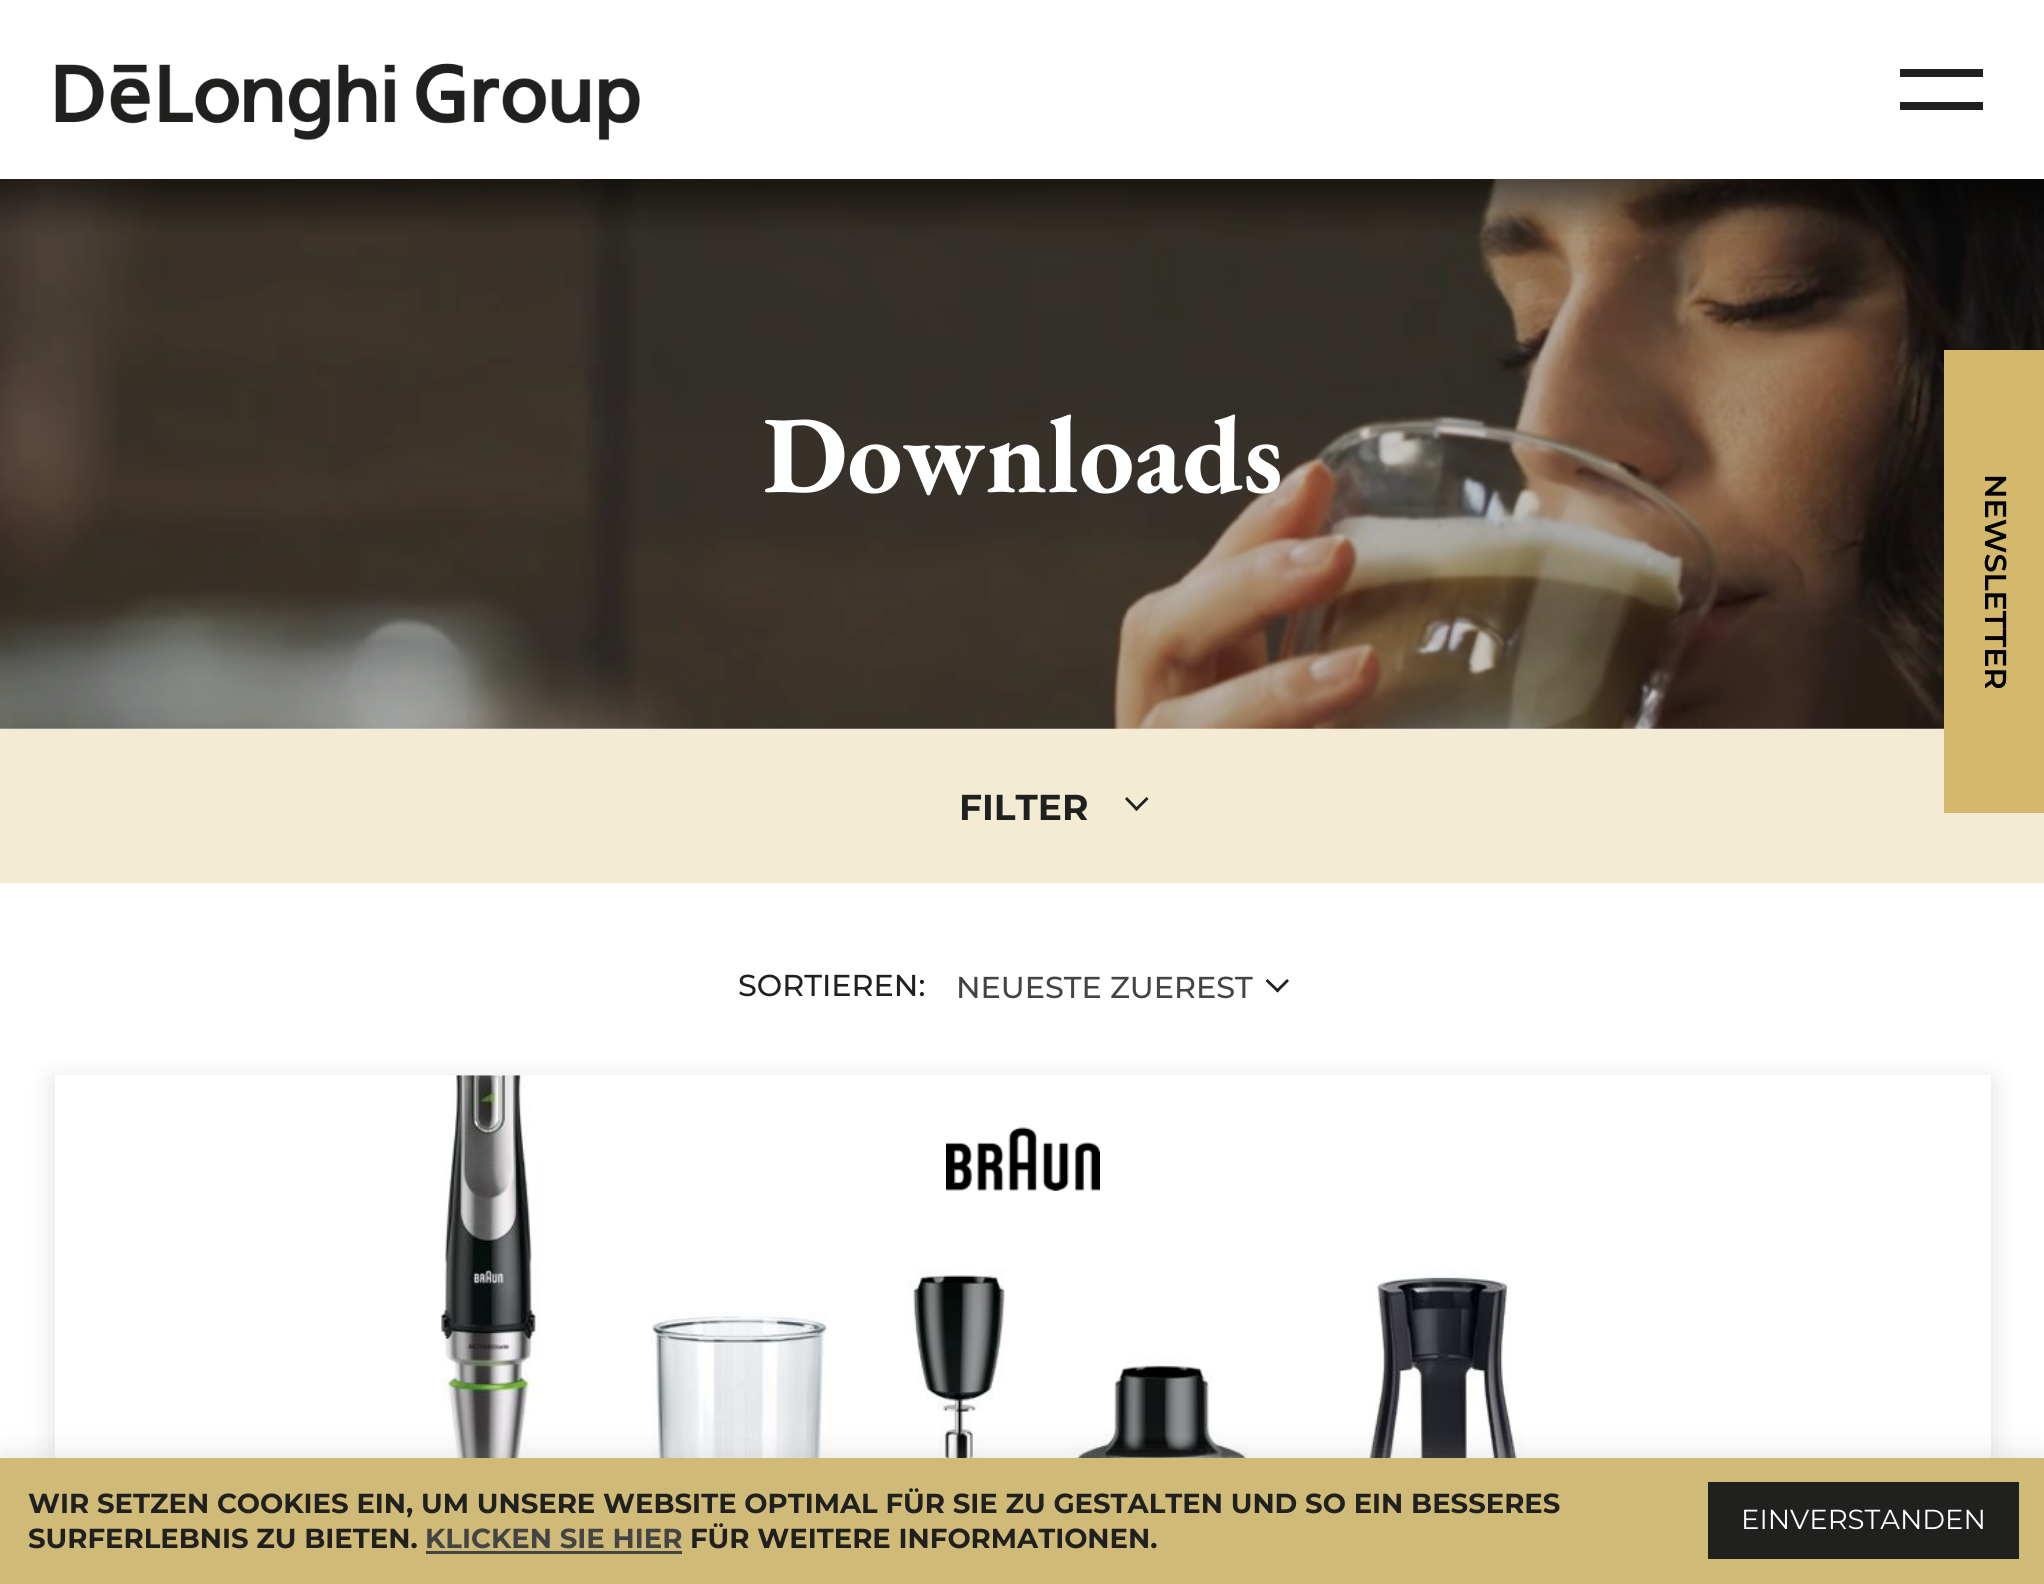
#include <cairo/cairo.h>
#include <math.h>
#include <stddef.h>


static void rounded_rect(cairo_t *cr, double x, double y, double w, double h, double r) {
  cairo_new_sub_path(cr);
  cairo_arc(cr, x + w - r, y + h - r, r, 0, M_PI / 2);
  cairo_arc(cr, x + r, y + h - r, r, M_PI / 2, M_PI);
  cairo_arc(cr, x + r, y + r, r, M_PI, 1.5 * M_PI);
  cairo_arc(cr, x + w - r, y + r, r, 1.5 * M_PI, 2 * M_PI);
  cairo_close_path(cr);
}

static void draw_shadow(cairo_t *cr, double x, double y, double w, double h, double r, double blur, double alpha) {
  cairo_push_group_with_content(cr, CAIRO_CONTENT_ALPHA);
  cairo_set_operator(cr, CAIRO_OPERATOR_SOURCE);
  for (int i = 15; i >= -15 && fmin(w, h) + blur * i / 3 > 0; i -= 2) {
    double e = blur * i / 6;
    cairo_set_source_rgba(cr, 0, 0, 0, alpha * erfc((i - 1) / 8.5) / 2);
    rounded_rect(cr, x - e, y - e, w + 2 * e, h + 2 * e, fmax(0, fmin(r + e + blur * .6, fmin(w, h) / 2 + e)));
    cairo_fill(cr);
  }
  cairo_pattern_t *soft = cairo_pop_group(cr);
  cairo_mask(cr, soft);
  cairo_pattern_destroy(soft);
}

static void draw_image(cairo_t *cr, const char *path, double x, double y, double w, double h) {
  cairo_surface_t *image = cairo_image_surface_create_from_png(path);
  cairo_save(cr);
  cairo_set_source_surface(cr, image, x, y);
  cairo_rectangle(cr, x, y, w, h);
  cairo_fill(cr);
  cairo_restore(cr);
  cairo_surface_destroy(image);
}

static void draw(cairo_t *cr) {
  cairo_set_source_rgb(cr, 1, 1, 1);
  cairo_paint(cr);
  draw_image(cr, "images/1.png", 55, 63, 585, 78);
  cairo_set_source_rgb(cr, 32 / 255.0, 32 / 255.0, 31 / 255.0);
  cairo_rectangle(cr, 1900, 69, 83, 8);
  cairo_fill(cr);
  cairo_rectangle(cr, 1900, 102, 83, 8);
  cairo_fill(cr);
  draw_image(cr, "images/2.png", 0, 179, 2044, 550);
  draw_image(cr, "images/3.png", 0, 179, 2044, 55);
  cairo_set_source_rgb(cr, 243 / 255.0, 235 / 255.0, 212 / 255.0);
  cairo_rectangle(cr, 0, 729, 2044, 154);
  cairo_fill(cr);
  cairo_set_source_rgb(cr, 212 / 255.0, 185 / 255.0, 109 / 255.0);
  cairo_rectangle(cr, 1944, 350, 100, 463);
  cairo_fill(cr);
  cairo_set_source_rgb(cr, 32 / 255.0, 32 / 255.0, 31 / 255.0);
  cairo_new_path(cr);
  cairo_move_to(cr, 1146.5, 797);
  cairo_line_to(cr, 1148.5, 799);
  cairo_line_to(cr, 1136.5, 811);
  cairo_line_to(cr, 1134.5, 809);
  cairo_close_path(cr);
  cairo_fill(cr);
  cairo_new_path(cr);
  cairo_move_to(cr, 1127, 797);
  cairo_line_to(cr, 1138.5, 809);
  cairo_line_to(cr, 1136.5, 811);
  cairo_line_to(cr, 1125, 799);
  cairo_close_path(cr);
  cairo_fill(cr);
  cairo_new_path(cr);
  cairo_move_to(cr, 1287, 979);
  cairo_line_to(cr, 1289, 981);
  cairo_line_to(cr, 1277.5, 992.5);
  cairo_line_to(cr, 1275.5, 990.5);
  cairo_close_path(cr);
  cairo_fill(cr);
  cairo_new_path(cr);
  cairo_move_to(cr, 1267.5, 979);
  cairo_line_to(cr, 1279.5, 990.5);
  cairo_line_to(cr, 1277.5, 992.5);
  cairo_line_to(cr, 1265.5, 981);
  cairo_close_path(cr);
  cairo_fill(cr);
  cairo_save(cr);
  cairo_set_fill_rule(cr, CAIRO_FILL_RULE_EVEN_ODD);
  cairo_new_path(cr);
  cairo_move_to(cr, 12, 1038);
  cairo_line_to(cr, 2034, 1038);
  cairo_line_to(cr, 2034, 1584);
  cairo_line_to(cr, 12, 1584);
  cairo_close_path(cr);
  cairo_move_to(cr, 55, 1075);
  cairo_line_to(cr, 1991, 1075);
  cairo_line_to(cr, 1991, 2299);
  cairo_line_to(cr, 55, 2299);
  cairo_close_path(cr);
  cairo_clip(cr);
  cairo_set_source_rgb(cr, 32 / 255.0, 32 / 255.0, 31 / 255.0);
  draw_shadow(cr, 55, 1081, 1936, 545, 0, 14, 0.15);
  cairo_restore(cr);
  draw_image(cr, "images/4.png", 441, 1075, 1100, 383);
  draw_image(cr, "images/5.png", 946, 1127, 154, 64);
  cairo_set_source_rgb(cr, 172 / 255.0, 171 / 255.0, 171 / 255.0);
  draw_shadow(cr, 0, 1455, 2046, 126, 0, 14, 0.3);
  cairo_set_source_rgb(cr, 208 / 255.0, 186 / 255.0, 120 / 255.0);
  cairo_rectangle(cr, 0, 1458, 2044, 126);
  cairo_fill(cr);
  cairo_set_source_rgb(cr, 68 / 255.0, 68 / 255.0, 68 / 255.0);
  cairo_rectangle(cr, 426, 1551, 256, 3);
  cairo_fill(cr);
  cairo_set_source_rgb(cr, 32 / 255.0, 32 / 255.0, 31 / 255.0);
  cairo_rectangle(cr, 1708, 1482, 311, 77);
  cairo_fill(cr);
  cairo_select_font_face(cr, "EB Garamond", CAIRO_FONT_SLANT_NORMAL, CAIRO_FONT_WEIGHT_BOLD);
  cairo_set_font_size(cr, 110);
  cairo_set_source_rgb(cr, 1, 1, 1);
  cairo_move_to(cr, 763, 492);
  cairo_show_text(cr, "Downloads");
  cairo_select_font_face(cr, "Montserrat SemiBold", CAIRO_FONT_SLANT_NORMAL, CAIRO_FONT_WEIGHT_NORMAL);
  cairo_set_font_size(cr, 30.25);
  cairo_set_source_rgb(cr, 0, 0, 0);
  cairo_save(cr);
  cairo_translate(cr, 1985, 474);
  cairo_rotate(cr, 90 * M_PI / 180);
  cairo_move_to(cr, 0, 0);
  cairo_show_text(cr, "NEWSLETTER");
  cairo_restore(cr);
  cairo_select_font_face(cr, "Montserrat", CAIRO_FONT_SLANT_NORMAL, CAIRO_FONT_WEIGHT_BOLD);
  cairo_set_font_size(cr, 36);
  cairo_set_source_rgb(cr, 32 / 255.0, 32 / 255.0, 31 / 255.0);
  cairo_move_to(cr, 959, 820);
  cairo_show_text(cr, "FILTER");
  cairo_select_font_face(cr, "Montserrat Medium", CAIRO_FONT_SLANT_NORMAL, CAIRO_FONT_WEIGHT_NORMAL);
  cairo_set_font_size(cr, 30.25);
  cairo_move_to(cr, 738, 996);
  cairo_show_text(cr, "SORTIEREN:");
  cairo_set_source_rgb(cr, 68 / 255.0, 68 / 255.0, 68 / 255.0);
  cairo_move_to(cr, 956, 998);
  cairo_show_text(cr, "NEUESTE ZUEREST");
  cairo_select_font_face(cr, "Montserrat", CAIRO_FONT_SLANT_NORMAL, CAIRO_FONT_WEIGHT_BOLD);
  cairo_set_font_size(cr, 27.5);
  cairo_set_source_rgb(cr, 32 / 255.0, 32 / 255.0, 31 / 255.0);
  cairo_move_to(cr, 28, 1513);
  cairo_show_text(cr, "WIR SETZEN COOKIES EIN, UM UNSERE WEBSITE OPTIMAL FÜR SIE ZU GESTALTEN UND SO EIN BESSERES");
  cairo_move_to(cr, 28, 1548);
  cairo_show_text(cr, "SURFERLEBNIS ZU BIETEN.");
  cairo_set_source_rgb(cr, 68 / 255.0, 68 / 255.0, 68 / 255.0);
  cairo_move_to(cr, 425, 1548);
  cairo_show_text(cr, "KLICKEN SIE HIER");
  cairo_set_source_rgb(cr, 32 / 255.0, 32 / 255.0, 31 / 255.0);
  cairo_move_to(cr, 690, 1548);
  cairo_show_text(cr, "FÜR WEITERE INFORMATIONEN.");
  cairo_select_font_face(cr, "Montserrat", CAIRO_FONT_SLANT_NORMAL, CAIRO_FONT_WEIGHT_NORMAL);
  cairo_set_source_rgb(cr, 1, 1, 1);
  cairo_move_to(cr, 1741, 1529);
  cairo_show_text(cr, "EINVERSTANDEN");
}

int main(void) {
  cairo_surface_t *surface = cairo_image_surface_create(CAIRO_FORMAT_RGB24, 2044, 1584);
  cairo_t *cr = cairo_create(surface);
  cairo_font_options_t *options = cairo_font_options_create();
  cairo_font_options_set_hint_metrics(options, CAIRO_HINT_METRICS_OFF);
  cairo_font_options_set_hint_style(options, CAIRO_HINT_STYLE_NONE);
  cairo_set_font_options(cr, options);
  cairo_set_miter_limit(cr, 4);
  draw(cr);
  cairo_surface_write_to_png(surface, "out.png");
  cairo_font_options_destroy(options);
  cairo_destroy(cr);
  cairo_surface_destroy(surface);
  return 0;
}
